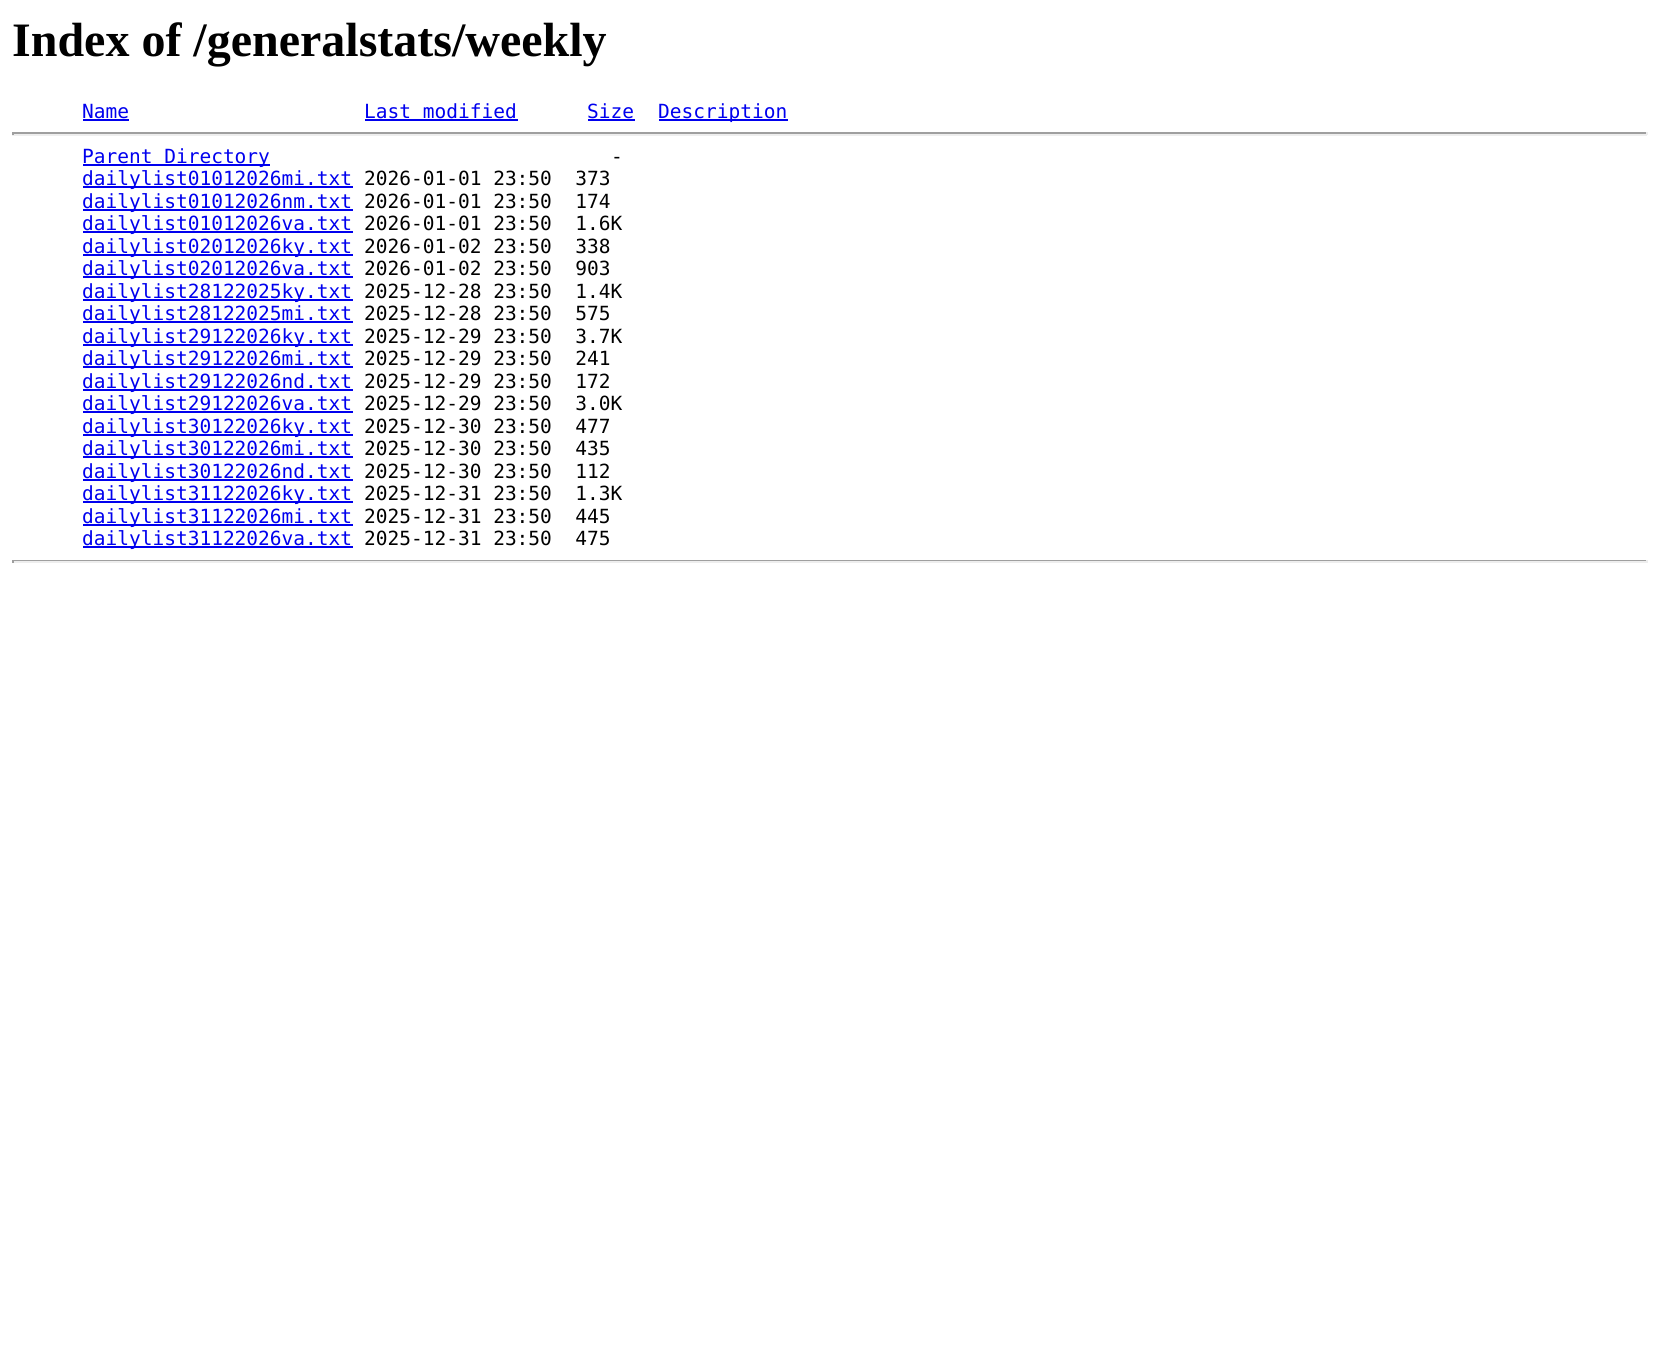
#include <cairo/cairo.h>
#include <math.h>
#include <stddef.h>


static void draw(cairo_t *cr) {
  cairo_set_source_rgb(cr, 1, 1, 1);
  cairo_paint(cr);
  cairo_set_source_rgb(cr, 0, 0, 238 / 255.0);
  cairo_rectangle(cr, 83, 119, 46, 2);
  cairo_fill(cr);
  cairo_rectangle(cr, 365, 119, 153, 2);
  cairo_fill(cr);
  cairo_rectangle(cr, 588, 119, 47, 2);
  cairo_fill(cr);
  cairo_rectangle(cr, 659, 119, 129, 2);
  cairo_fill(cr);
  cairo_set_source_rgb(cr, 159 / 255.0, 159 / 255.0, 159 / 255.0);
  cairo_rectangle(cr, 12, 132, 1635, 2);
  cairo_fill(cr);
  cairo_set_source_rgb(cr, 238 / 255.0, 238 / 255.0, 238 / 255.0);
  cairo_rectangle(cr, 1646, 132, 2, 3);
  cairo_fill(cr);
  cairo_rectangle(cr, 12, 134, 1635, 2);
  cairo_fill(cr);
  cairo_set_source_rgb(cr, 159 / 255.0, 159 / 255.0, 159 / 255.0);
  cairo_rectangle(cr, 12, 132, 2, 3);
  cairo_fill(cr);
  cairo_set_source_rgb(cr, 0, 0, 238 / 255.0);
  cairo_rectangle(cr, 83, 164, 187, 2);
  cairo_fill(cr);
  cairo_rectangle(cr, 83, 186, 270, 2);
  cairo_fill(cr);
  cairo_rectangle(cr, 83, 209, 270, 2);
  cairo_fill(cr);
  cairo_rectangle(cr, 83, 231, 270, 2);
  cairo_fill(cr);
  cairo_rectangle(cr, 83, 254, 270, 2);
  cairo_fill(cr);
  cairo_rectangle(cr, 83, 276, 270, 2);
  cairo_fill(cr);
  cairo_rectangle(cr, 83, 299, 270, 2);
  cairo_fill(cr);
  cairo_rectangle(cr, 83, 321, 270, 2);
  cairo_fill(cr);
  cairo_rectangle(cr, 83, 344, 270, 2);
  cairo_fill(cr);
  cairo_rectangle(cr, 83, 366, 270, 2);
  cairo_fill(cr);
  cairo_rectangle(cr, 83, 389, 270, 2);
  cairo_fill(cr);
  cairo_rectangle(cr, 83, 411, 270, 2);
  cairo_fill(cr);
  cairo_rectangle(cr, 83, 434, 270, 2);
  cairo_fill(cr);
  cairo_rectangle(cr, 83, 456, 270, 2);
  cairo_fill(cr);
  cairo_rectangle(cr, 83, 479, 270, 2);
  cairo_fill(cr);
  cairo_rectangle(cr, 83, 501, 270, 2);
  cairo_fill(cr);
  cairo_rectangle(cr, 83, 524, 270, 2);
  cairo_fill(cr);
  cairo_rectangle(cr, 83, 546, 270, 2);
  cairo_fill(cr);
  cairo_set_source_rgb(cr, 159 / 255.0, 159 / 255.0, 159 / 255.0);
  cairo_rectangle(cr, 12, 560, 1635, 1);
  cairo_fill(cr);
  cairo_set_source_rgb(cr, 238 / 255.0, 238 / 255.0, 238 / 255.0);
  cairo_rectangle(cr, 1646, 560, 2, 3);
  cairo_fill(cr);
  cairo_rectangle(cr, 12, 561, 1635, 2);
  cairo_fill(cr);
  cairo_set_source_rgb(cr, 159 / 255.0, 159 / 255.0, 159 / 255.0);
  cairo_rectangle(cr, 12, 560, 2, 3);
  cairo_fill(cr);
  cairo_select_font_face(cr, "Liberation Serif", CAIRO_FONT_SLANT_NORMAL, CAIRO_FONT_WEIGHT_BOLD);
  cairo_set_font_size(cr, 48);
  cairo_set_source_rgb(cr, 0, 0, 0);
  cairo_move_to(cr, 12, 56);
  cairo_show_text(cr, "Index of /generalstats/weekly");
  cairo_select_font_face(cr, "DejaVu Sans Mono", CAIRO_FONT_SLANT_NORMAL, CAIRO_FONT_WEIGHT_NORMAL);
  cairo_set_font_size(cr, 19.5);
  cairo_set_source_rgb(cr, 0, 0, 238 / 255.0);
  cairo_move_to(cr, 82, 118);
  cairo_show_text(cr, "Name");
  cairo_move_to(cr, 364, 118);
  cairo_show_text(cr, "Last modified");
  cairo_move_to(cr, 587, 118);
  cairo_show_text(cr, "Size");
  cairo_move_to(cr, 658, 118);
  cairo_show_text(cr, "Description");
  cairo_move_to(cr, 82, 163);
  cairo_show_text(cr, "Parent Directory");
  cairo_set_source_rgb(cr, 0, 0, 0);
  cairo_move_to(cr, 611, 163);
  cairo_show_text(cr, "-");
  cairo_set_source_rgb(cr, 0, 0, 238 / 255.0);
  cairo_move_to(cr, 82, 185);
  cairo_show_text(cr, "dailylist01012026mi.txt");
  cairo_set_source_rgb(cr, 0, 0, 0);
  cairo_move_to(cr, 364, 185);
  cairo_show_text(cr, "2026-01-01 23:50  373");
  cairo_set_source_rgb(cr, 0, 0, 238 / 255.0);
  cairo_move_to(cr, 82, 208);
  cairo_show_text(cr, "dailylist01012026nm.txt");
  cairo_set_source_rgb(cr, 0, 0, 0);
  cairo_move_to(cr, 364, 208);
  cairo_show_text(cr, "2026-01-01 23:50  174");
  cairo_set_source_rgb(cr, 0, 0, 238 / 255.0);
  cairo_move_to(cr, 82, 230);
  cairo_show_text(cr, "dailylist01012026va.txt");
  cairo_set_source_rgb(cr, 0, 0, 0);
  cairo_move_to(cr, 364, 230);
  cairo_show_text(cr, "2026-01-01 23:50  1.6K");
  cairo_set_source_rgb(cr, 0, 0, 238 / 255.0);
  cairo_move_to(cr, 82, 253);
  cairo_show_text(cr, "dailylist02012026ky.txt");
  cairo_set_source_rgb(cr, 0, 0, 0);
  cairo_move_to(cr, 364, 253);
  cairo_show_text(cr, "2026-01-02 23:50  338");
  cairo_set_source_rgb(cr, 0, 0, 238 / 255.0);
  cairo_move_to(cr, 82, 275);
  cairo_show_text(cr, "dailylist02012026va.txt");
  cairo_set_source_rgb(cr, 0, 0, 0);
  cairo_move_to(cr, 364, 275);
  cairo_show_text(cr, "2026-01-02 23:50  903");
  cairo_set_source_rgb(cr, 0, 0, 238 / 255.0);
  cairo_move_to(cr, 82, 298);
  cairo_show_text(cr, "dailylist28122025ky.txt");
  cairo_set_source_rgb(cr, 0, 0, 0);
  cairo_move_to(cr, 364, 298);
  cairo_show_text(cr, "2025-12-28 23:50  1.4K");
  cairo_set_source_rgb(cr, 0, 0, 238 / 255.0);
  cairo_move_to(cr, 82, 320);
  cairo_show_text(cr, "dailylist28122025mi.txt");
  cairo_set_source_rgb(cr, 0, 0, 0);
  cairo_move_to(cr, 364, 320);
  cairo_show_text(cr, "2025-12-28 23:50  575");
  cairo_set_source_rgb(cr, 0, 0, 238 / 255.0);
  cairo_move_to(cr, 82, 343);
  cairo_show_text(cr, "dailylist29122026ky.txt");
  cairo_set_source_rgb(cr, 0, 0, 0);
  cairo_move_to(cr, 364, 343);
  cairo_show_text(cr, "2025-12-29 23:50  3.7K");
  cairo_set_source_rgb(cr, 0, 0, 238 / 255.0);
  cairo_move_to(cr, 82, 365);
  cairo_show_text(cr, "dailylist29122026mi.txt");
  cairo_set_source_rgb(cr, 0, 0, 0);
  cairo_move_to(cr, 364, 365);
  cairo_show_text(cr, "2025-12-29 23:50  241");
  cairo_set_source_rgb(cr, 0, 0, 238 / 255.0);
  cairo_move_to(cr, 82, 388);
  cairo_show_text(cr, "dailylist29122026nd.txt");
  cairo_set_source_rgb(cr, 0, 0, 0);
  cairo_move_to(cr, 364, 388);
  cairo_show_text(cr, "2025-12-29 23:50  172");
  cairo_set_source_rgb(cr, 0, 0, 238 / 255.0);
  cairo_move_to(cr, 82, 410);
  cairo_show_text(cr, "dailylist29122026va.txt");
  cairo_set_source_rgb(cr, 0, 0, 0);
  cairo_move_to(cr, 364, 410);
  cairo_show_text(cr, "2025-12-29 23:50  3.0K");
  cairo_set_source_rgb(cr, 0, 0, 238 / 255.0);
  cairo_move_to(cr, 82, 433);
  cairo_show_text(cr, "dailylist30122026ky.txt");
  cairo_set_source_rgb(cr, 0, 0, 0);
  cairo_move_to(cr, 364, 433);
  cairo_show_text(cr, "2025-12-30 23:50  477");
  cairo_set_source_rgb(cr, 0, 0, 238 / 255.0);
  cairo_move_to(cr, 82, 455);
  cairo_show_text(cr, "dailylist30122026mi.txt");
  cairo_set_source_rgb(cr, 0, 0, 0);
  cairo_move_to(cr, 364, 455);
  cairo_show_text(cr, "2025-12-30 23:50  435");
  cairo_set_source_rgb(cr, 0, 0, 238 / 255.0);
  cairo_move_to(cr, 82, 478);
  cairo_show_text(cr, "dailylist30122026nd.txt");
  cairo_set_source_rgb(cr, 0, 0, 0);
  cairo_move_to(cr, 364, 478);
  cairo_show_text(cr, "2025-12-30 23:50  112");
  cairo_set_source_rgb(cr, 0, 0, 238 / 255.0);
  cairo_move_to(cr, 82, 500);
  cairo_show_text(cr, "dailylist31122026ky.txt");
  cairo_set_source_rgb(cr, 0, 0, 0);
  cairo_move_to(cr, 364, 500);
  cairo_show_text(cr, "2025-12-31 23:50  1.3K");
  cairo_set_source_rgb(cr, 0, 0, 238 / 255.0);
  cairo_move_to(cr, 82, 523);
  cairo_show_text(cr, "dailylist31122026mi.txt");
  cairo_set_source_rgb(cr, 0, 0, 0);
  cairo_move_to(cr, 364, 523);
  cairo_show_text(cr, "2025-12-31 23:50  445");
  cairo_set_source_rgb(cr, 0, 0, 238 / 255.0);
  cairo_move_to(cr, 82, 545);
  cairo_show_text(cr, "dailylist31122026va.txt");
  cairo_set_source_rgb(cr, 0, 0, 0);
  cairo_move_to(cr, 364, 545);
  cairo_show_text(cr, "2025-12-31 23:50  475");
}

int main(void) {
  cairo_surface_t *surface = cairo_image_surface_create(CAIRO_FORMAT_RGB24, 1659, 1345);
  cairo_t *cr = cairo_create(surface);
  cairo_font_options_t *options = cairo_font_options_create();
  cairo_font_options_set_hint_metrics(options, CAIRO_HINT_METRICS_OFF);
  cairo_font_options_set_hint_style(options, CAIRO_HINT_STYLE_NONE);
  cairo_set_font_options(cr, options);
  cairo_set_miter_limit(cr, 4);
  draw(cr);
  cairo_surface_write_to_png(surface, "out.png");
  cairo_font_options_destroy(options);
  cairo_destroy(cr);
  cairo_surface_destroy(surface);
  return 0;
}
